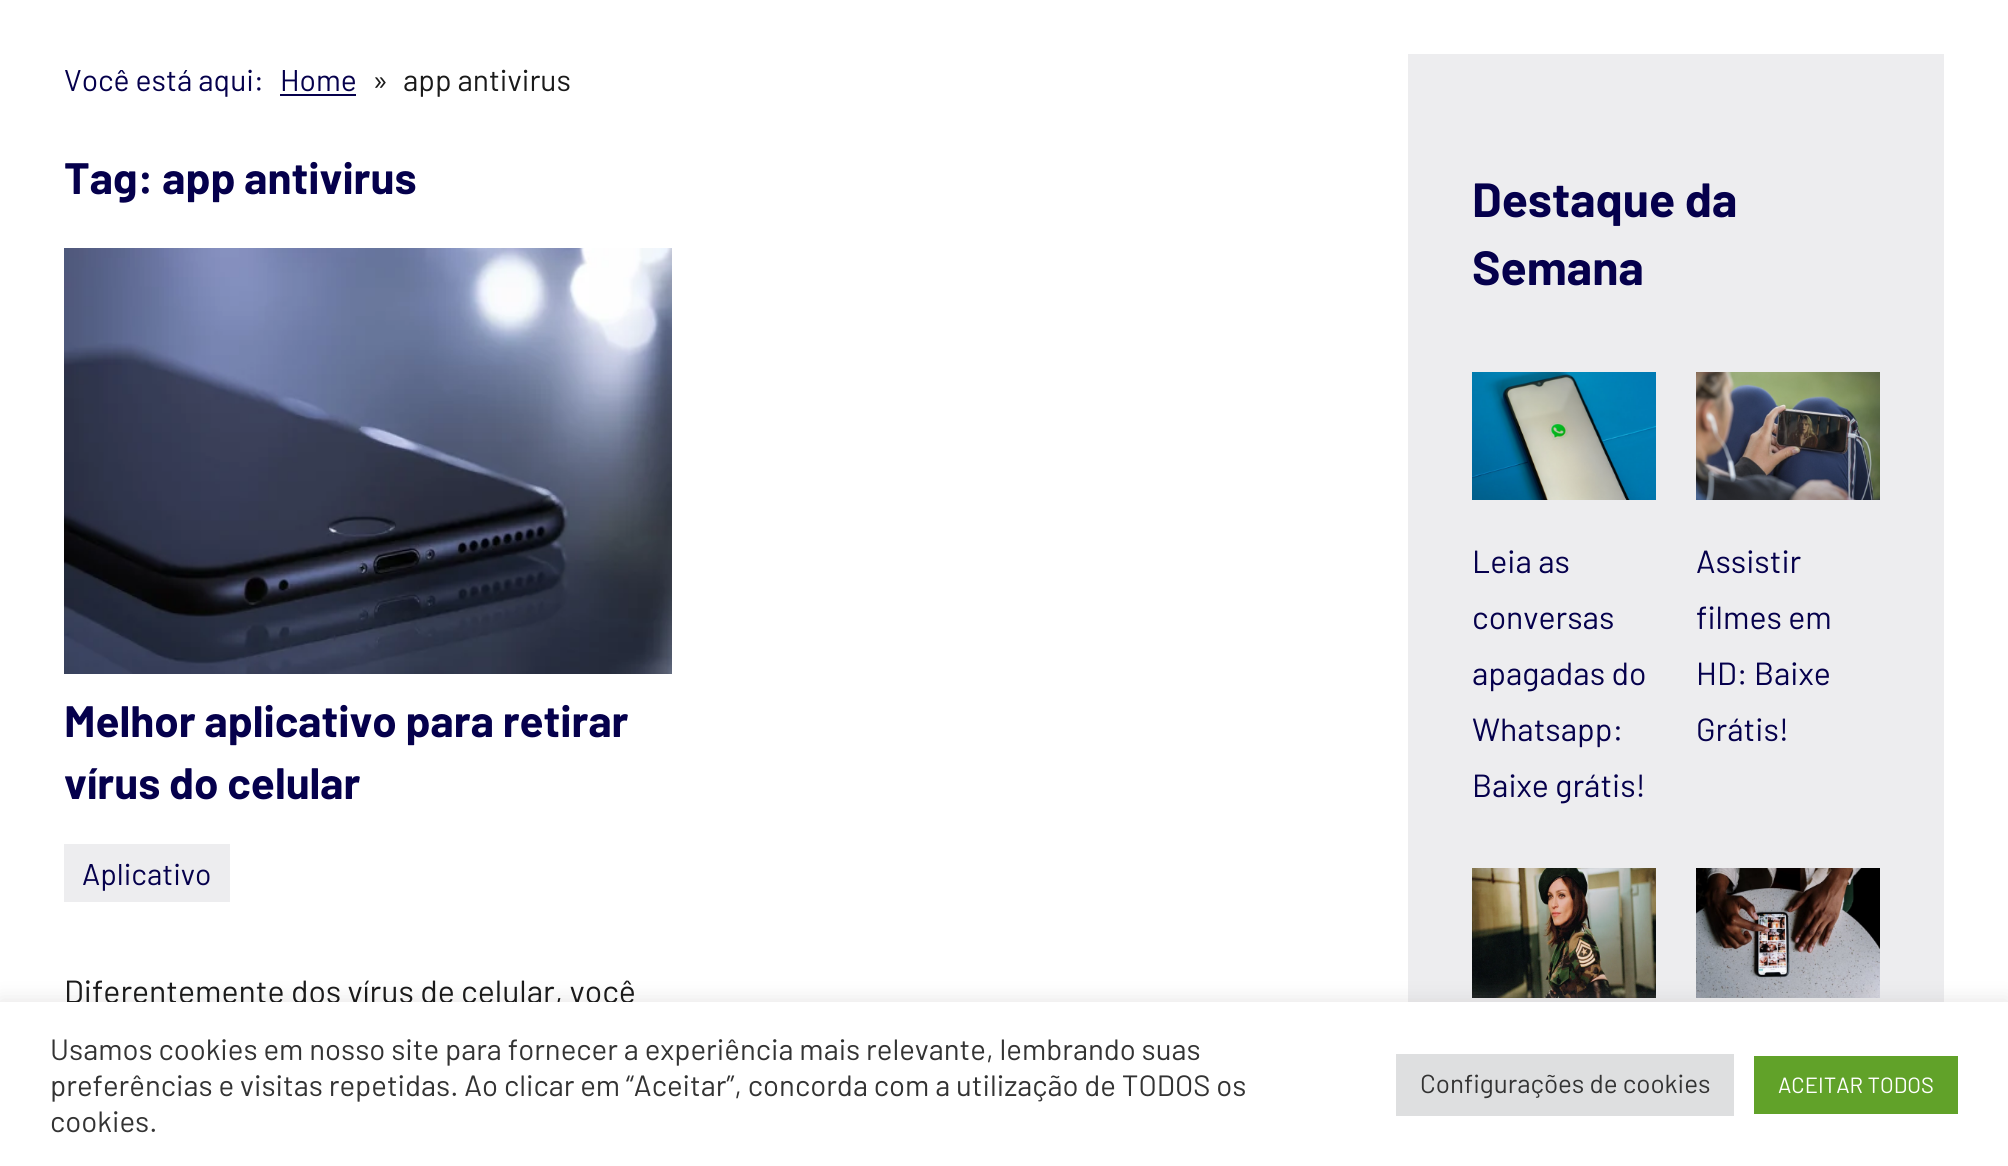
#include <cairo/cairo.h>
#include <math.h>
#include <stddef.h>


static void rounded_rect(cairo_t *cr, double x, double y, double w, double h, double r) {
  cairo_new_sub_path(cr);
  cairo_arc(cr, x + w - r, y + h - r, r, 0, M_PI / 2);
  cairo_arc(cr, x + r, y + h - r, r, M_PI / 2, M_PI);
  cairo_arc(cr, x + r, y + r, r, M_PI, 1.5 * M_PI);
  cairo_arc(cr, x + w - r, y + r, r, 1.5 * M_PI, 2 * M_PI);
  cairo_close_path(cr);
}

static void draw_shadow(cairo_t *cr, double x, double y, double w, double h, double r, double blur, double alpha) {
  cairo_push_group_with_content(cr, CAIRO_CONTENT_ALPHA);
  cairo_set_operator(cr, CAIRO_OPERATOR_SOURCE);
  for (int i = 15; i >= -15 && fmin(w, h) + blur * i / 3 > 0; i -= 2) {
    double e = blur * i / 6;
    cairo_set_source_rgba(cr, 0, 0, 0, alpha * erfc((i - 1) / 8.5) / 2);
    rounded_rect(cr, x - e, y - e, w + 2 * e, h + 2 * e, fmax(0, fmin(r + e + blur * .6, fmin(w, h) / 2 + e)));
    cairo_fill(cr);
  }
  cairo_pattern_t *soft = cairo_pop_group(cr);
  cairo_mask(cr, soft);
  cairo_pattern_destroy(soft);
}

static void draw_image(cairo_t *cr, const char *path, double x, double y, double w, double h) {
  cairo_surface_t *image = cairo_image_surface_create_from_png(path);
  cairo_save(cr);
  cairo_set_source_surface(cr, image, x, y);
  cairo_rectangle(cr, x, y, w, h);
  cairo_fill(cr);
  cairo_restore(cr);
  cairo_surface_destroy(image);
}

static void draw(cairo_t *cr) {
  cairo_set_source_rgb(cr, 1, 1, 1);
  cairo_paint(cr);
  cairo_set_source_rgb(cr, 5 / 255.0, 0, 76 / 255.0);
  cairo_rectangle(cr, 280, 94, 76, 2);
  cairo_fill(cr);
  draw_image(cr, "images/1.png", 64, 248, 608, 426);
  cairo_set_source_rgb(cr, 237 / 255.0, 237 / 255.0, 239 / 255.0);
  cairo_rectangle(cr, 64, 844, 166, 58);
  cairo_fill(cr);
  cairo_rectangle(cr, 1408, 54, 536, 948);
  cairo_fill(cr);
  draw_image(cr, "images/2.png", 1472, 372, 184, 128);
  draw_image(cr, "images/3.png", 1696, 372, 184, 128);
  draw_image(cr, "images/4.png", 1472, 868, 184, 130);
  draw_image(cr, "images/5.png", 1696, 868, 184, 130);
  cairo_set_source_rgb(cr, 172 / 255.0, 171 / 255.0, 171 / 255.0);
  draw_shadow(cr, 0, 1000, 2008, 164, 0, 10, 0.3);
  cairo_select_font_face(cr, "Barlow", CAIRO_FONT_SLANT_NORMAL, CAIRO_FONT_WEIGHT_NORMAL);
  cairo_set_font_size(cr, 30);
  cairo_set_source_rgb(cr, 5 / 255.0, 0, 76 / 255.0);
  cairo_move_to(cr, 64, 91);
  cairo_show_text(cr, "Você está aqui:");
  cairo_move_to(cr, 280, 91);
  cairo_show_text(cr, "Home");
  cairo_set_source_rgb(cr, 26 / 255.0, 26 / 255.0, 26 / 255.0);
  cairo_move_to(cr, 372, 91);
  cairo_show_text(cr, "»");
  cairo_move_to(cr, 403, 91);
  cairo_show_text(cr, "app antivirus");
  cairo_select_font_face(cr, "Barlow", CAIRO_FONT_SLANT_NORMAL, CAIRO_FONT_WEIGHT_BOLD);
  cairo_set_font_size(cr, 44);
  cairo_set_source_rgb(cr, 5 / 255.0, 0, 76 / 255.0);
  cairo_move_to(cr, 64, 194);
  cairo_show_text(cr, "Tag: app antivirus");
  cairo_move_to(cr, 64, 737);
  cairo_show_text(cr, "Melhor aplicativo para retirar");
  cairo_move_to(cr, 64, 799);
  cairo_show_text(cr, "vírus do celular");
  cairo_select_font_face(cr, "Barlow", CAIRO_FONT_SLANT_NORMAL, CAIRO_FONT_WEIGHT_NORMAL);
  cairo_set_font_size(cr, 30);
  cairo_move_to(cr, 82, 885);
  cairo_show_text(cr, "Aplicativo");
  cairo_set_font_size(cr, 32);
  cairo_set_source_rgb(cr, 26 / 255.0, 26 / 255.0, 26 / 255.0);
  cairo_move_to(cr, 64, 1003);
  cairo_show_text(cr, "Diferentemente dos vírus de celular, você");
  cairo_select_font_face(cr, "Barlow", CAIRO_FONT_SLANT_NORMAL, CAIRO_FONT_WEIGHT_BOLD);
  cairo_set_font_size(cr, 48);
  cairo_set_source_rgb(cr, 5 / 255.0, 0, 76 / 255.0);
  cairo_move_to(cr, 1472, 217);
  cairo_show_text(cr, "Destaque da");
  cairo_move_to(cr, 1472, 285);
  cairo_show_text(cr, "Semana");
  cairo_select_font_face(cr, "Barlow", CAIRO_FONT_SLANT_NORMAL, CAIRO_FONT_WEIGHT_NORMAL);
  cairo_set_font_size(cr, 32);
  cairo_move_to(cr, 1472, 573);
  cairo_show_text(cr, "Leia as");
  cairo_move_to(cr, 1472, 629);
  cairo_show_text(cr, "conversas");
  cairo_move_to(cr, 1472, 685);
  cairo_show_text(cr, "apagadas do");
  cairo_move_to(cr, 1472, 741);
  cairo_show_text(cr, "Whatsapp:");
  cairo_move_to(cr, 1472, 797);
  cairo_show_text(cr, "Baixe grátis!");
  cairo_move_to(cr, 1696, 573);
  cairo_show_text(cr, "Assistir");
  cairo_move_to(cr, 1696, 629);
  cairo_show_text(cr, "filmes em");
  cairo_move_to(cr, 1696, 685);
  cairo_show_text(cr, "HD: Baixe");
  cairo_move_to(cr, 1696, 741);
  cairo_show_text(cr, "Grátis!");
  cairo_set_source_rgb(cr, 1, 1, 1);
  cairo_rectangle(cr, 0, 1002, 2008, 164);
  cairo_fill(cr);
  cairo_set_font_size(cr, 29.35);
  cairo_set_source_rgb(cr, 51 / 255.0, 51 / 255.0, 51 / 255.0);
  cairo_move_to(cr, 50, 1060);
  cairo_show_text(cr, "Usamos cookies em nosso site para fornecer a experiência mais relevante, lembrando suas");
  cairo_move_to(cr, 50, 1096);
  cairo_show_text(cr, "preferências e visitas repetidas. Ao clicar em “Aceitar”, concorda com a utilização de TODOS os");
  cairo_move_to(cr, 50, 1132);
  cairo_show_text(cr, "cookies.");
  cairo_set_source_rgb(cr, 222 / 255.0, 223 / 255.0, 224 / 255.0);
  cairo_rectangle(cr, 1396, 1054, 338, 62);
  cairo_fill(cr);
  cairo_set_font_size(cr, 26);
  cairo_set_source_rgb(cr, 51 / 255.0, 51 / 255.0, 51 / 255.0);
  cairo_move_to(cr, 1420, 1093);
  cairo_show_text(cr, "Configurações de cookies");
  cairo_set_source_rgb(cr, 97 / 255.0, 162 / 255.0, 41 / 255.0);
  cairo_rectangle(cr, 1754, 1056, 204, 58);
  cairo_fill(cr);
  cairo_set_font_size(cr, 22);
  cairo_set_source_rgb(cr, 1, 1, 1);
  cairo_move_to(cr, 1778, 1093);
  cairo_show_text(cr, "ACEITAR TODOS");
}

int main(void) {
  cairo_surface_t *surface = cairo_image_surface_create(CAIRO_FORMAT_RGB24, 2008, 1166);
  cairo_t *cr = cairo_create(surface);
  cairo_font_options_t *options = cairo_font_options_create();
  cairo_font_options_set_hint_metrics(options, CAIRO_HINT_METRICS_OFF);
  cairo_font_options_set_hint_style(options, CAIRO_HINT_STYLE_NONE);
  cairo_set_font_options(cr, options);
  cairo_set_miter_limit(cr, 4);
  draw(cr);
  cairo_surface_write_to_png(surface, "out.png");
  cairo_font_options_destroy(options);
  cairo_destroy(cr);
  cairo_surface_destroy(surface);
  return 0;
}
